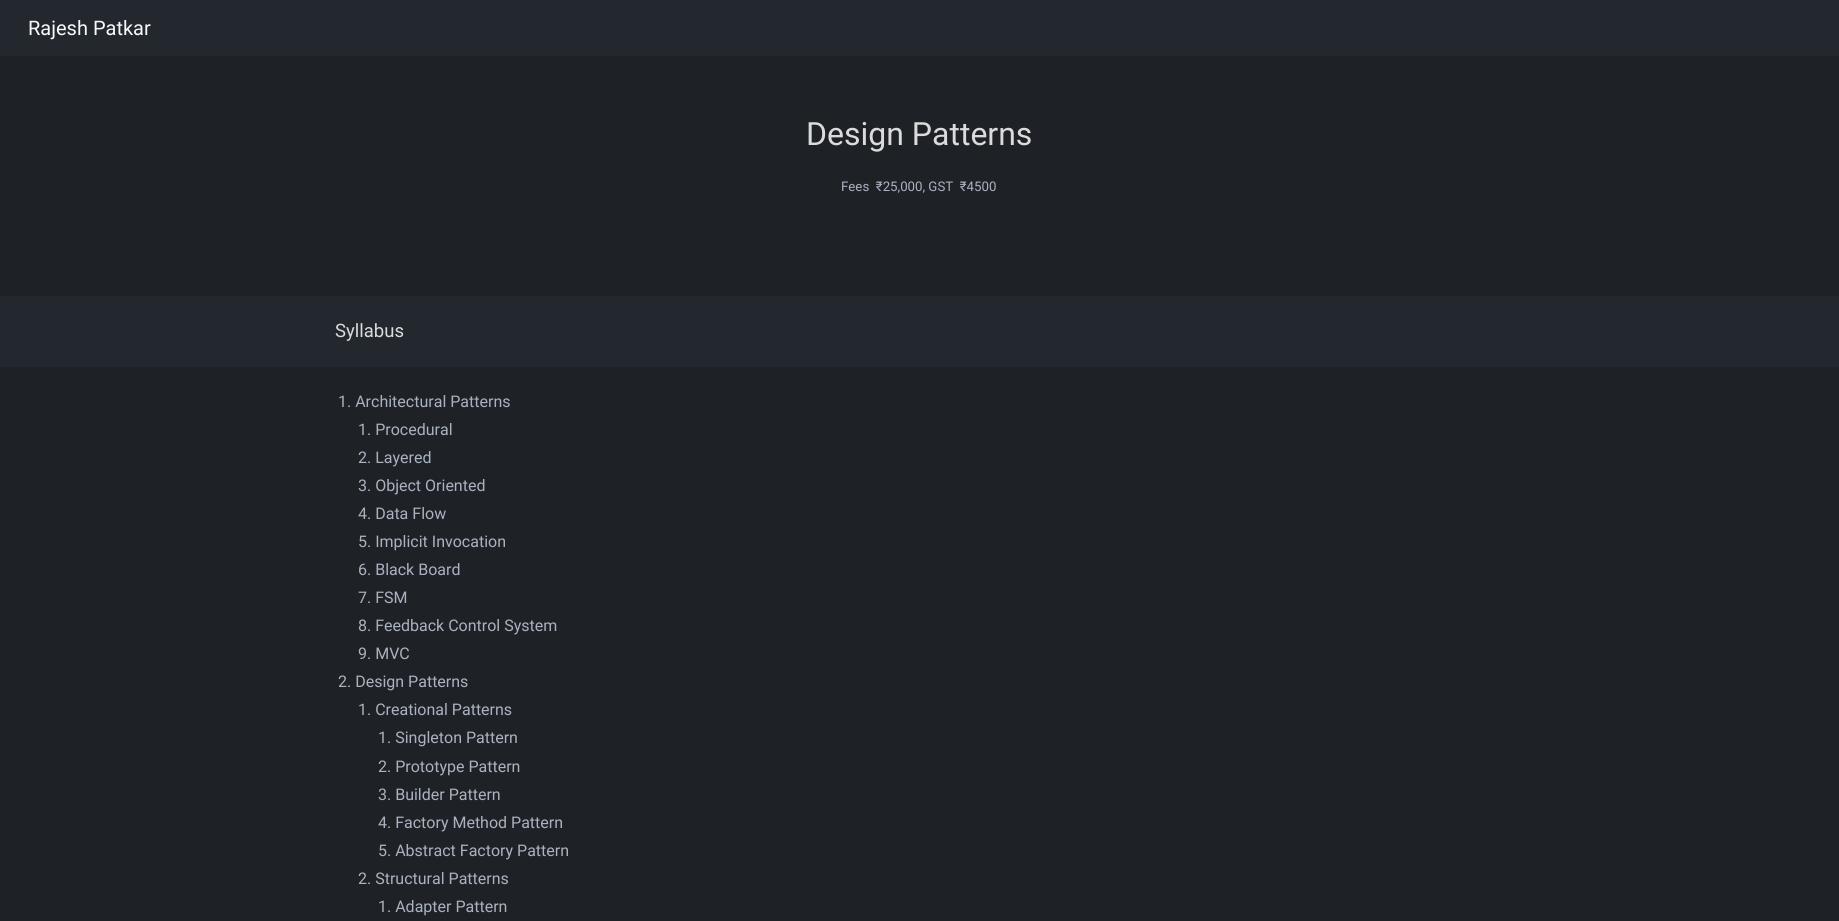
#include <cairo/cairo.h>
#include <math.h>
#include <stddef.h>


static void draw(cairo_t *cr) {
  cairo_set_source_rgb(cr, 30 / 255.0, 34 / 255.0, 39 / 255.0);
  cairo_paint(cr);
  cairo_set_source_rgb(cr, 35 / 255.0, 39 / 255.0, 46 / 255.0);
  cairo_rectangle(cr, 0, 0, 1839, 56);
  cairo_fill(cr);
  cairo_rectangle(cr, 0, 296, 1839, 71);
  cairo_fill(cr);
  cairo_select_font_face(cr, "Roboto", CAIRO_FONT_SLANT_NORMAL, CAIRO_FONT_WEIGHT_NORMAL);
  cairo_set_font_size(cr, 20);
  cairo_set_source_rgb(cr, 249 / 255.0, 249 / 255.0, 249 / 255.0);
  cairo_move_to(cr, 28, 35);
  cairo_show_text(cr, "Rajesh Patkar");
  cairo_set_font_size(cr, 32);
  cairo_set_source_rgb(cr, 219 / 255.0, 219 / 255.0, 219 / 255.0);
  cairo_move_to(cr, 806, 145);
  cairo_show_text(cr, "Design Patterns");
  cairo_set_font_size(cr, 13.25);
  cairo_set_source_rgb(cr, 171 / 255.0, 178 / 255.0, 191 / 255.0);
  cairo_move_to(cr, 841, 191);
  cairo_show_text(cr, "Fees  ₹25,000, GST  ₹4500");
  cairo_set_font_size(cr, 18.5);
  cairo_set_source_rgb(cr, 219 / 255.0, 219 / 255.0, 219 / 255.0);
  cairo_move_to(cr, 335, 337);
  cairo_show_text(cr, "Syllabus");
  cairo_set_font_size(cr, 16);
  cairo_set_source_rgb(cr, 171 / 255.0, 178 / 255.0, 191 / 255.0);
  cairo_move_to(cr, 338, 407);
  cairo_show_text(cr, "1. Architectural Patterns");
  cairo_move_to(cr, 358, 435);
  cairo_show_text(cr, "1. Procedural");
  cairo_move_to(cr, 358, 463);
  cairo_show_text(cr, "2. Layered");
  cairo_move_to(cr, 358, 491);
  cairo_show_text(cr, "3. Object Oriented");
  cairo_move_to(cr, 358, 519);
  cairo_show_text(cr, "4. Data Flow");
  cairo_move_to(cr, 358, 547);
  cairo_show_text(cr, "5. Implicit Invocation");
  cairo_move_to(cr, 358, 575);
  cairo_show_text(cr, "6. Black Board");
  cairo_move_to(cr, 358, 603);
  cairo_show_text(cr, "7. FSM");
  cairo_move_to(cr, 358, 631);
  cairo_show_text(cr, "8. Feedback Control System");
  cairo_move_to(cr, 358, 659);
  cairo_show_text(cr, "9. MVC");
  cairo_move_to(cr, 338, 687);
  cairo_show_text(cr, "2. Design Patterns");
  cairo_move_to(cr, 358, 715);
  cairo_show_text(cr, "1. Creational Patterns");
  cairo_move_to(cr, 378, 743);
  cairo_show_text(cr, "1. Singleton Pattern");
  cairo_move_to(cr, 378, 772);
  cairo_show_text(cr, "2. Prototype Pattern");
  cairo_move_to(cr, 378, 800);
  cairo_show_text(cr, "3. Builder Pattern");
  cairo_move_to(cr, 378, 828);
  cairo_show_text(cr, "4. Factory Method Pattern");
  cairo_move_to(cr, 378, 856);
  cairo_show_text(cr, "5. Abstract Factory Pattern");
  cairo_move_to(cr, 358, 884);
  cairo_show_text(cr, "2. Structural Patterns");
  cairo_move_to(cr, 378, 912);
  cairo_show_text(cr, "1. Adapter Pattern");
}

int main(void) {
  cairo_surface_t *surface = cairo_image_surface_create(CAIRO_FORMAT_RGB24, 1839, 921);
  cairo_t *cr = cairo_create(surface);
  cairo_font_options_t *options = cairo_font_options_create();
  cairo_font_options_set_hint_metrics(options, CAIRO_HINT_METRICS_OFF);
  cairo_font_options_set_hint_style(options, CAIRO_HINT_STYLE_NONE);
  cairo_set_font_options(cr, options);
  cairo_set_miter_limit(cr, 4);
  draw(cr);
  cairo_surface_write_to_png(surface, "out.png");
  cairo_font_options_destroy(options);
  cairo_destroy(cr);
  cairo_surface_destroy(surface);
  return 0;
}
